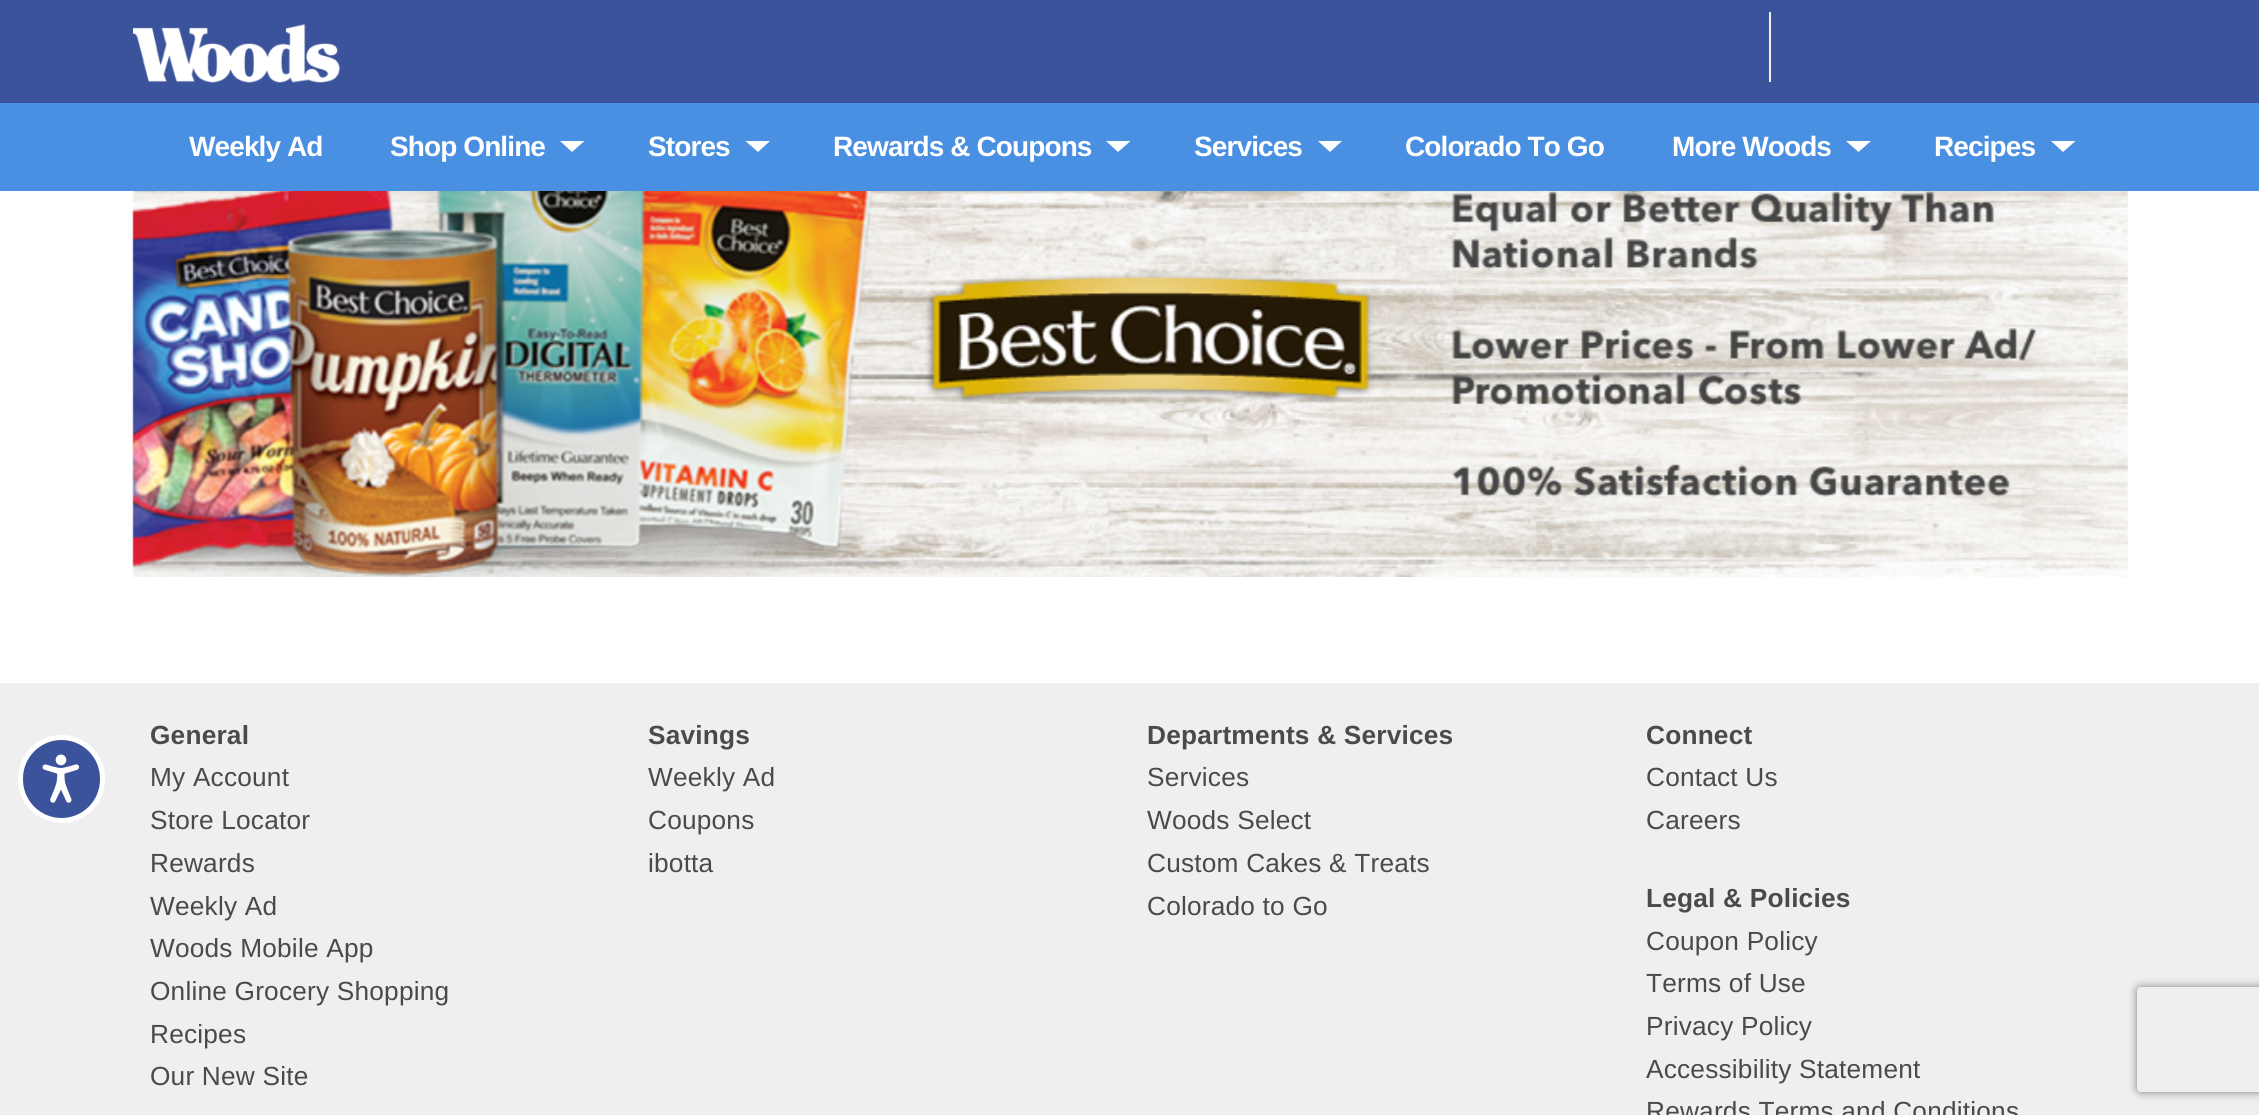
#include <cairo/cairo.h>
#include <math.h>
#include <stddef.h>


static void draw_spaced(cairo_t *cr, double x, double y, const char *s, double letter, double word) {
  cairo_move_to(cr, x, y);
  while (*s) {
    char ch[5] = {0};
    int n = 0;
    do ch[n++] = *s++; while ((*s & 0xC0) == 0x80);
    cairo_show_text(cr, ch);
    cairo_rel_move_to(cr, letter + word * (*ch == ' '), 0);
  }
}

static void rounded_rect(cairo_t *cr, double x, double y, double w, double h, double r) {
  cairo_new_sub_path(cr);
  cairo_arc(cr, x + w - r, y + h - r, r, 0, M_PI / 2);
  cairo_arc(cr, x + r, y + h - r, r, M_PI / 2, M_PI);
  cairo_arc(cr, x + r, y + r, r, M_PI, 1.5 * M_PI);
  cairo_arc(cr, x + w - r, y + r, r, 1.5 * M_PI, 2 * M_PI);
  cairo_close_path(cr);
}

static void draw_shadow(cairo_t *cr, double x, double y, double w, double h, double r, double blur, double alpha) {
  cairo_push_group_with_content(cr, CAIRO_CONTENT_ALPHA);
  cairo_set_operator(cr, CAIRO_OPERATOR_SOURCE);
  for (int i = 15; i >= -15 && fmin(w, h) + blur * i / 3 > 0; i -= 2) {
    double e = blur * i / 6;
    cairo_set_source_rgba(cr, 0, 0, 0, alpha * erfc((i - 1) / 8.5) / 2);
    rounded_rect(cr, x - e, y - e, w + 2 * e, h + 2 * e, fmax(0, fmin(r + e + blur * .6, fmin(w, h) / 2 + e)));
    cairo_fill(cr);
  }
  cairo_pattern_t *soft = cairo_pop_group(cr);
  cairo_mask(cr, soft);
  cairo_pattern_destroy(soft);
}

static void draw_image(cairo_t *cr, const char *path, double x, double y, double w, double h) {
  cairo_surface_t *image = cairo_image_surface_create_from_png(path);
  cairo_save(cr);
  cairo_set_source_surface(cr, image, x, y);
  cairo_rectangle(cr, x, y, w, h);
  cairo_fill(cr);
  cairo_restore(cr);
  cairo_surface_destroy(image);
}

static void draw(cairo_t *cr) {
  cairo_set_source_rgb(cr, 1, 1, 1);
  cairo_paint(cr);
  cairo_set_source_rgb(cr, 239 / 255.0, 239 / 255.0, 239 / 255.0);
  cairo_rectangle(cr, 0, 683, 2259, 432);
  cairo_fill(cr);
  cairo_set_source_rgb(cr, 59 / 255.0, 83 / 255.0, 154 / 255.0);
  rounded_rect(cr, 20.5, 737.5, 82, 83, 41);
  cairo_fill_preserve(cr);
  cairo_set_source_rgb(cr, 1, 1, 1);
  cairo_set_line_width(cr, 5);
  cairo_stroke(cr);
  draw_image(cr, "images/1.png", 42, 754, 37, 49);
  cairo_set_source_rgb(cr, 59 / 255.0, 83 / 255.0, 154 / 255.0);
  cairo_rectangle(cr, 0, 0, 2259, 103);
  cairo_fill(cr);
  draw_image(cr, "images/2.png", 133, 24, 207, 59);
  cairo_set_source_rgb(cr, 239 / 255.0, 239 / 255.0, 239 / 255.0);
  cairo_rectangle(cr, 1769, 12, 2, 70);
  cairo_fill(cr);
  cairo_set_source_rgb(cr, 74 / 255.0, 144 / 255.0, 226 / 255.0);
  cairo_rectangle(cr, 0, 103, 2259, 88);
  cairo_fill(cr);
  cairo_set_source_rgb(cr, 1, 1, 1);
  cairo_new_path(cr);
  cairo_move_to(cr, 560, 141);
  cairo_line_to(cr, 584.5, 141);
  cairo_line_to(cr, 572, 152);
  cairo_close_path(cr);
  cairo_fill(cr);
  cairo_new_path(cr);
  cairo_move_to(cr, 745.5, 141);
  cairo_line_to(cr, 770, 141);
  cairo_line_to(cr, 758, 152);
  cairo_close_path(cr);
  cairo_fill(cr);
  cairo_new_path(cr);
  cairo_move_to(cr, 1106, 141);
  cairo_line_to(cr, 1130.5, 141);
  cairo_line_to(cr, 1118, 152);
  cairo_close_path(cr);
  cairo_fill(cr);
  cairo_new_path(cr);
  cairo_move_to(cr, 1318, 141);
  cairo_line_to(cr, 1342, 141);
  cairo_line_to(cr, 1330, 152);
  cairo_close_path(cr);
  cairo_fill(cr);
  cairo_new_path(cr);
  cairo_move_to(cr, 1846, 141);
  cairo_line_to(cr, 1871, 141);
  cairo_line_to(cr, 1858.5, 152);
  cairo_close_path(cr);
  cairo_fill(cr);
  cairo_new_path(cr);
  cairo_move_to(cr, 2051, 141);
  cairo_line_to(cr, 2075.5, 141);
  cairo_line_to(cr, 2063, 152);
  cairo_close_path(cr);
  cairo_fill(cr);
  draw_image(cr, "images/3.png", 132, 191, 1996, 386);
  cairo_save(cr);
  cairo_set_fill_rule(cr, CAIRO_FILL_RULE_EVEN_ODD);
  cairo_new_path(cr);
  cairo_move_to(cr, 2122, 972);
  cairo_line_to(cr, 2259, 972);
  cairo_line_to(cr, 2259, 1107);
  cairo_line_to(cr, 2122, 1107);
  cairo_close_path(cr);
  cairo_move_to(cr, 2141, 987);
  cairo_line_to(cr, 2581, 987);
  cairo_curve_to(cr, 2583, 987, 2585, 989, 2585, 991);
  cairo_line_to(cr, 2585, 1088);
  cairo_curve_to(cr, 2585, 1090, 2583, 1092, 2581, 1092);
  cairo_line_to(cr, 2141, 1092);
  cairo_curve_to(cr, 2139, 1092, 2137, 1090, 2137, 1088);
  cairo_line_to(cr, 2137, 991);
  cairo_curve_to(cr, 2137, 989, 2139, 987, 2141, 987);
  cairo_close_path(cr);
  cairo_clip(cr);
  cairo_set_source_rgb(cr, 128 / 255.0, 128 / 255.0, 128 / 255.0);
  draw_shadow(cr, 2137, 987, 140, 105, 4, 4.5, 1);
  cairo_restore(cr);
  cairo_select_font_face(cr, "Liberation Sans", CAIRO_FONT_SLANT_NORMAL, CAIRO_FONT_WEIGHT_BOLD);
  cairo_set_font_size(cr, 28);
  draw_spaced(cr, 189, 156, "Weekly Ad", -0.9, 0);
  draw_spaced(cr, 390, 156, "Shop Online", -0.9, 0);
  draw_spaced(cr, 648, 156, "Stores", -0.9, 0);
  draw_spaced(cr, 833, 156, "Rewards & Coupons", -0.9, 0);
  draw_spaced(cr, 1194, 156, "Services", -0.9, 0);
  draw_spaced(cr, 1405, 156, "Colorado To Go", -0.9, 0);
  draw_spaced(cr, 1672, 156, "More Woods", -0.9, 0);
  draw_spaced(cr, 1934, 156, "Recipes", -0.9, 0);
  cairo_set_font_size(cr, 26.25);
  cairo_set_source_rgb(cr, 74 / 255.0, 74 / 255.0, 74 / 255.0);
  draw_spaced(cr, 150, 744, "General", 0.2, 0);
  cairo_select_font_face(cr, "Liberation Sans", CAIRO_FONT_SLANT_NORMAL, CAIRO_FONT_WEIGHT_NORMAL);
  draw_spaced(cr, 150, 786, "My Account", 0.2, 0);
  draw_spaced(cr, 150, 829, "Store Locator", 0.2, 0);
  draw_spaced(cr, 150, 872, "Rewards", 0.2, 0);
  draw_spaced(cr, 150, 915, "Weekly Ad", 0.2, 0);
  draw_spaced(cr, 150, 957, "Woods Mobile App", 0.2, 0);
  draw_spaced(cr, 150, 1000, "Online Grocery Shopping", 0.2, 0);
  draw_spaced(cr, 150, 1043, "Recipes", 0.2, 0);
  draw_spaced(cr, 150, 1085, "Our New Site", 0.2, 0);
  cairo_select_font_face(cr, "Liberation Sans", CAIRO_FONT_SLANT_NORMAL, CAIRO_FONT_WEIGHT_BOLD);
  draw_spaced(cr, 648, 744, "Savings", 0.2, 0);
  cairo_select_font_face(cr, "Liberation Sans", CAIRO_FONT_SLANT_NORMAL, CAIRO_FONT_WEIGHT_NORMAL);
  draw_spaced(cr, 648, 786, "Weekly Ad", 0.2, 0);
  draw_spaced(cr, 648, 829, "Coupons", 0.2, 0);
  draw_spaced(cr, 648, 872, "ibotta", 0.2, 0);
  cairo_select_font_face(cr, "Liberation Sans", CAIRO_FONT_SLANT_NORMAL, CAIRO_FONT_WEIGHT_BOLD);
  draw_spaced(cr, 1147, 744, "Departments & Services", 0.2, 0);
  cairo_select_font_face(cr, "Liberation Sans", CAIRO_FONT_SLANT_NORMAL, CAIRO_FONT_WEIGHT_NORMAL);
  draw_spaced(cr, 1147, 786, "Services", 0.2, 0);
  draw_spaced(cr, 1147, 829, "Woods Select", 0.2, 0);
  draw_spaced(cr, 1147, 872, "Custom Cakes & Treats", 0.2, 0);
  draw_spaced(cr, 1147, 915, "Colorado to Go", 0.2, 0);
  cairo_select_font_face(cr, "Liberation Sans", CAIRO_FONT_SLANT_NORMAL, CAIRO_FONT_WEIGHT_BOLD);
  draw_spaced(cr, 1646, 744, "Connect", 0.2, 0);
  cairo_select_font_face(cr, "Liberation Sans", CAIRO_FONT_SLANT_NORMAL, CAIRO_FONT_WEIGHT_NORMAL);
  draw_spaced(cr, 1646, 786, "Contact Us", 0.2, 0);
  draw_spaced(cr, 1646, 829, "Careers", 0.2, 0);
  cairo_select_font_face(cr, "Liberation Sans", CAIRO_FONT_SLANT_NORMAL, CAIRO_FONT_WEIGHT_BOLD);
  draw_spaced(cr, 1646, 907, "Legal & Policies", 0.2, 0);
  cairo_select_font_face(cr, "Liberation Sans", CAIRO_FONT_SLANT_NORMAL, CAIRO_FONT_WEIGHT_NORMAL);
  draw_spaced(cr, 1646, 950, "Coupon Policy", 0.2, 0);
  draw_spaced(cr, 1646, 992, "Terms of Use", 0.2, 0);
  draw_spaced(cr, 1646, 1035, "Privacy Policy", 0.2, 0);
  draw_spaced(cr, 1646, 1078, "Accessibility Statement", 0.2, 0);
  draw_spaced(cr, 1646, 1120, "Rewards Terms and Conditions", 0.2, 0);
}

int main(void) {
  cairo_surface_t *surface = cairo_image_surface_create(CAIRO_FORMAT_RGB24, 2259, 1115);
  cairo_t *cr = cairo_create(surface);
  cairo_font_options_t *options = cairo_font_options_create();
  cairo_font_options_set_hint_metrics(options, CAIRO_HINT_METRICS_OFF);
  cairo_font_options_set_hint_style(options, CAIRO_HINT_STYLE_NONE);
  cairo_set_font_options(cr, options);
  cairo_set_miter_limit(cr, 4);
  draw(cr);
  cairo_surface_write_to_png(surface, "out.png");
  cairo_font_options_destroy(options);
  cairo_destroy(cr);
  cairo_surface_destroy(surface);
  return 0;
}
